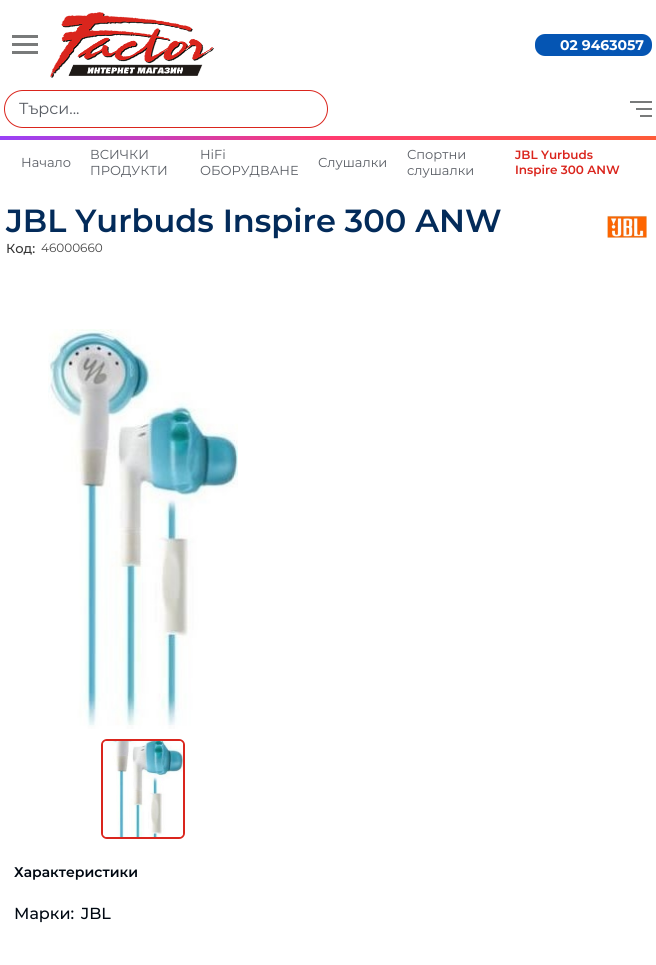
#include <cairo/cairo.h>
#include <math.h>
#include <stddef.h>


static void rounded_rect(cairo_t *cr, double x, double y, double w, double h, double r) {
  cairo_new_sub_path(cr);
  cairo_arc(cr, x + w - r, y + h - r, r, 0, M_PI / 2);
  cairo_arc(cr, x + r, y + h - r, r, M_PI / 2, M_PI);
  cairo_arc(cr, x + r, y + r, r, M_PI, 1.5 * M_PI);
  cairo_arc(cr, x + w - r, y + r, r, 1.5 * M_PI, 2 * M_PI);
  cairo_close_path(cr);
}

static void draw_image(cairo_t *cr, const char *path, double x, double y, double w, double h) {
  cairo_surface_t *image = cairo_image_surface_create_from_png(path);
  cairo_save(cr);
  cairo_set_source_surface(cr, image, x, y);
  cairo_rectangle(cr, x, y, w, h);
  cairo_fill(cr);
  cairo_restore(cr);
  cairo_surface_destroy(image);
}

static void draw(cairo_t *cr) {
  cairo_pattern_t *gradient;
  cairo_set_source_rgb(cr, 1, 1, 1);
  cairo_paint(cr);
  cairo_set_source_rgb(cr, 120 / 255.0, 122 / 255.0, 122 / 255.0);
  cairo_rectangle(cr, 12, 35, 26, 3);
  cairo_fill(cr);
  cairo_rectangle(cr, 12, 43, 26, 3);
  cairo_fill(cr);
  cairo_rectangle(cr, 12, 51, 26, 3);
  cairo_fill(cr);
  draw_image(cr, "images/1.png", 50, 12, 164, 66);
  cairo_set_source_rgb(cr, 5 / 255.0, 85 / 255.0, 179 / 255.0);
  rounded_rect(cr, 535, 34, 117, 22, 10);
  cairo_fill(cr);
  rounded_rect(cr, 4.5, 90.5, 323, 37, 18.5);
  cairo_set_source_rgb(cr, 218 / 255.0, 37 / 255.0, 29 / 255.0);
  cairo_set_line_width(cr, 1);
  cairo_stroke(cr);
  cairo_set_source_rgb(cr, 120 / 255.0, 122 / 255.0, 122 / 255.0);
  cairo_rectangle(cr, 630, 101, 22, 2);
  cairo_fill(cr);
  cairo_rectangle(cr, 636, 108, 16, 2);
  cairo_fill(cr);
  cairo_rectangle(cr, 640, 115, 12, 2);
  cairo_fill(cr);
  gradient = cairo_pattern_create_linear(0, 138, 656, 138);
  cairo_pattern_add_color_stop_rgba(gradient, 0, 153 / 255.0, 65 / 255.0, 247 / 255.0, 1);
  cairo_pattern_add_color_stop_rgba(gradient, 0.5, 1, 58 / 255.0, 112 / 255.0, 1);
  cairo_pattern_add_color_stop_rgba(gradient, 1, 254 / 255.0, 91 / 255.0, 56 / 255.0, 1);
  cairo_set_source(cr, gradient);
  cairo_pattern_destroy(gradient);
  cairo_rectangle(cr, 0, 136, 656, 4);
  cairo_fill(cr);
  draw_image(cr, "images/2.png", 607, 215, 40, 23);
  draw_image(cr, "images/3.png", 48, 329, 190, 400);
  rounded_rect(cr, 102, 740, 82, 98, 5);
  cairo_set_source_rgb(cr, 218 / 255.0, 37 / 255.0, 29 / 255.0);
  cairo_set_line_width(cr, 2);
  cairo_stroke(cr);
  draw_image(cr, "images/4.png", 103, 741, 80, 96);
  cairo_select_font_face(cr, "Montserrat", CAIRO_FONT_SLANT_NORMAL, CAIRO_FONT_WEIGHT_BOLD);
  cairo_set_font_size(cr, 14);
  cairo_set_source_rgb(cr, 1, 1, 1);
  cairo_move_to(cr, 560, 50);
  cairo_show_text(cr, "02 9463057");
  cairo_select_font_face(cr, "Montserrat", CAIRO_FONT_SLANT_NORMAL, CAIRO_FONT_WEIGHT_NORMAL);
  cairo_set_font_size(cr, 16);
  cairo_set_source_rgb(cr, 89 / 255.0, 93 / 255.0, 100 / 255.0);
  cairo_move_to(cr, 19, 114);
  cairo_show_text(cr, "Търси...");
  cairo_set_font_size(cr, 13);
  cairo_move_to(cr, 21, 167);
  cairo_show_text(cr, "Начало");
  cairo_move_to(cr, 90, 159);
  cairo_show_text(cr, "ВСИЧКИ");
  cairo_move_to(cr, 90, 175);
  cairo_show_text(cr, "ПРОДУКТИ");
  cairo_move_to(cr, 200, 159);
  cairo_show_text(cr, "HiFi");
  cairo_move_to(cr, 200, 175);
  cairo_show_text(cr, "ОБОРУДВАНЕ");
  cairo_move_to(cr, 318, 167);
  cairo_show_text(cr, "Слушалки");
  cairo_move_to(cr, 407, 159);
  cairo_show_text(cr, "Спортни");
  cairo_move_to(cr, 407, 175);
  cairo_show_text(cr, "слушалки");
  cairo_select_font_face(cr, "Montserrat SemiBold", CAIRO_FONT_SLANT_NORMAL, CAIRO_FONT_WEIGHT_NORMAL);
  cairo_set_font_size(cr, 12);
  cairo_set_source_rgb(cr, 218 / 255.0, 37 / 255.0, 29 / 255.0);
  cairo_move_to(cr, 515, 159);
  cairo_show_text(cr, "JBL Yurbuds");
  cairo_move_to(cr, 515, 174);
  cairo_show_text(cr, "Inspire 300 ANW");
  cairo_set_font_size(cr, 32);
  cairo_set_source_rgb(cr, 3 / 255.0, 43 / 255.0, 90 / 255.0);
  cairo_move_to(cr, 6, 232);
  cairo_show_text(cr, "JBL Yurbuds Inspire 300 ANW");
  cairo_select_font_face(cr, "Montserrat Medium", CAIRO_FONT_SLANT_NORMAL, CAIRO_FONT_WEIGHT_NORMAL);
  cairo_set_font_size(cr, 13);
  cairo_set_source_rgb(cr, 51 / 255.0, 51 / 255.0, 51 / 255.0);
  cairo_move_to(cr, 6, 253);
  cairo_show_text(cr, "Код:");
  cairo_select_font_face(cr, "Montserrat", CAIRO_FONT_SLANT_NORMAL, CAIRO_FONT_WEIGHT_NORMAL);
  cairo_set_font_size(cr, 12);
  cairo_set_source_rgb(cr, 71 / 255.0, 71 / 255.0, 71 / 255.0);
  cairo_move_to(cr, 41, 252);
  cairo_show_text(cr, "46000660");
  cairo_select_font_face(cr, "Montserrat SemiBold", CAIRO_FONT_SLANT_NORMAL, CAIRO_FONT_WEIGHT_NORMAL);
  cairo_set_font_size(cr, 14);
  cairo_set_source_rgb(cr, 0, 8 / 255.0, 18 / 255.0);
  cairo_move_to(cr, 14, 877);
  cairo_show_text(cr, "Характеристики");
  cairo_select_font_face(cr, "Montserrat Medium", CAIRO_FONT_SLANT_NORMAL, CAIRO_FONT_WEIGHT_NORMAL);
  cairo_set_font_size(cr, 16);
  cairo_move_to(cr, 14, 919);
  cairo_show_text(cr, "Марки:");
  cairo_move_to(cr, 81, 919);
  cairo_show_text(cr, "JBL");
}

int main(void) {
  cairo_surface_t *surface = cairo_image_surface_create(CAIRO_FORMAT_RGB24, 656, 965);
  cairo_t *cr = cairo_create(surface);
  cairo_font_options_t *options = cairo_font_options_create();
  cairo_font_options_set_hint_metrics(options, CAIRO_HINT_METRICS_OFF);
  cairo_font_options_set_hint_style(options, CAIRO_HINT_STYLE_NONE);
  cairo_set_font_options(cr, options);
  cairo_set_miter_limit(cr, 4);
  draw(cr);
  cairo_surface_write_to_png(surface, "out.png");
  cairo_font_options_destroy(options);
  cairo_destroy(cr);
  cairo_surface_destroy(surface);
  return 0;
}
